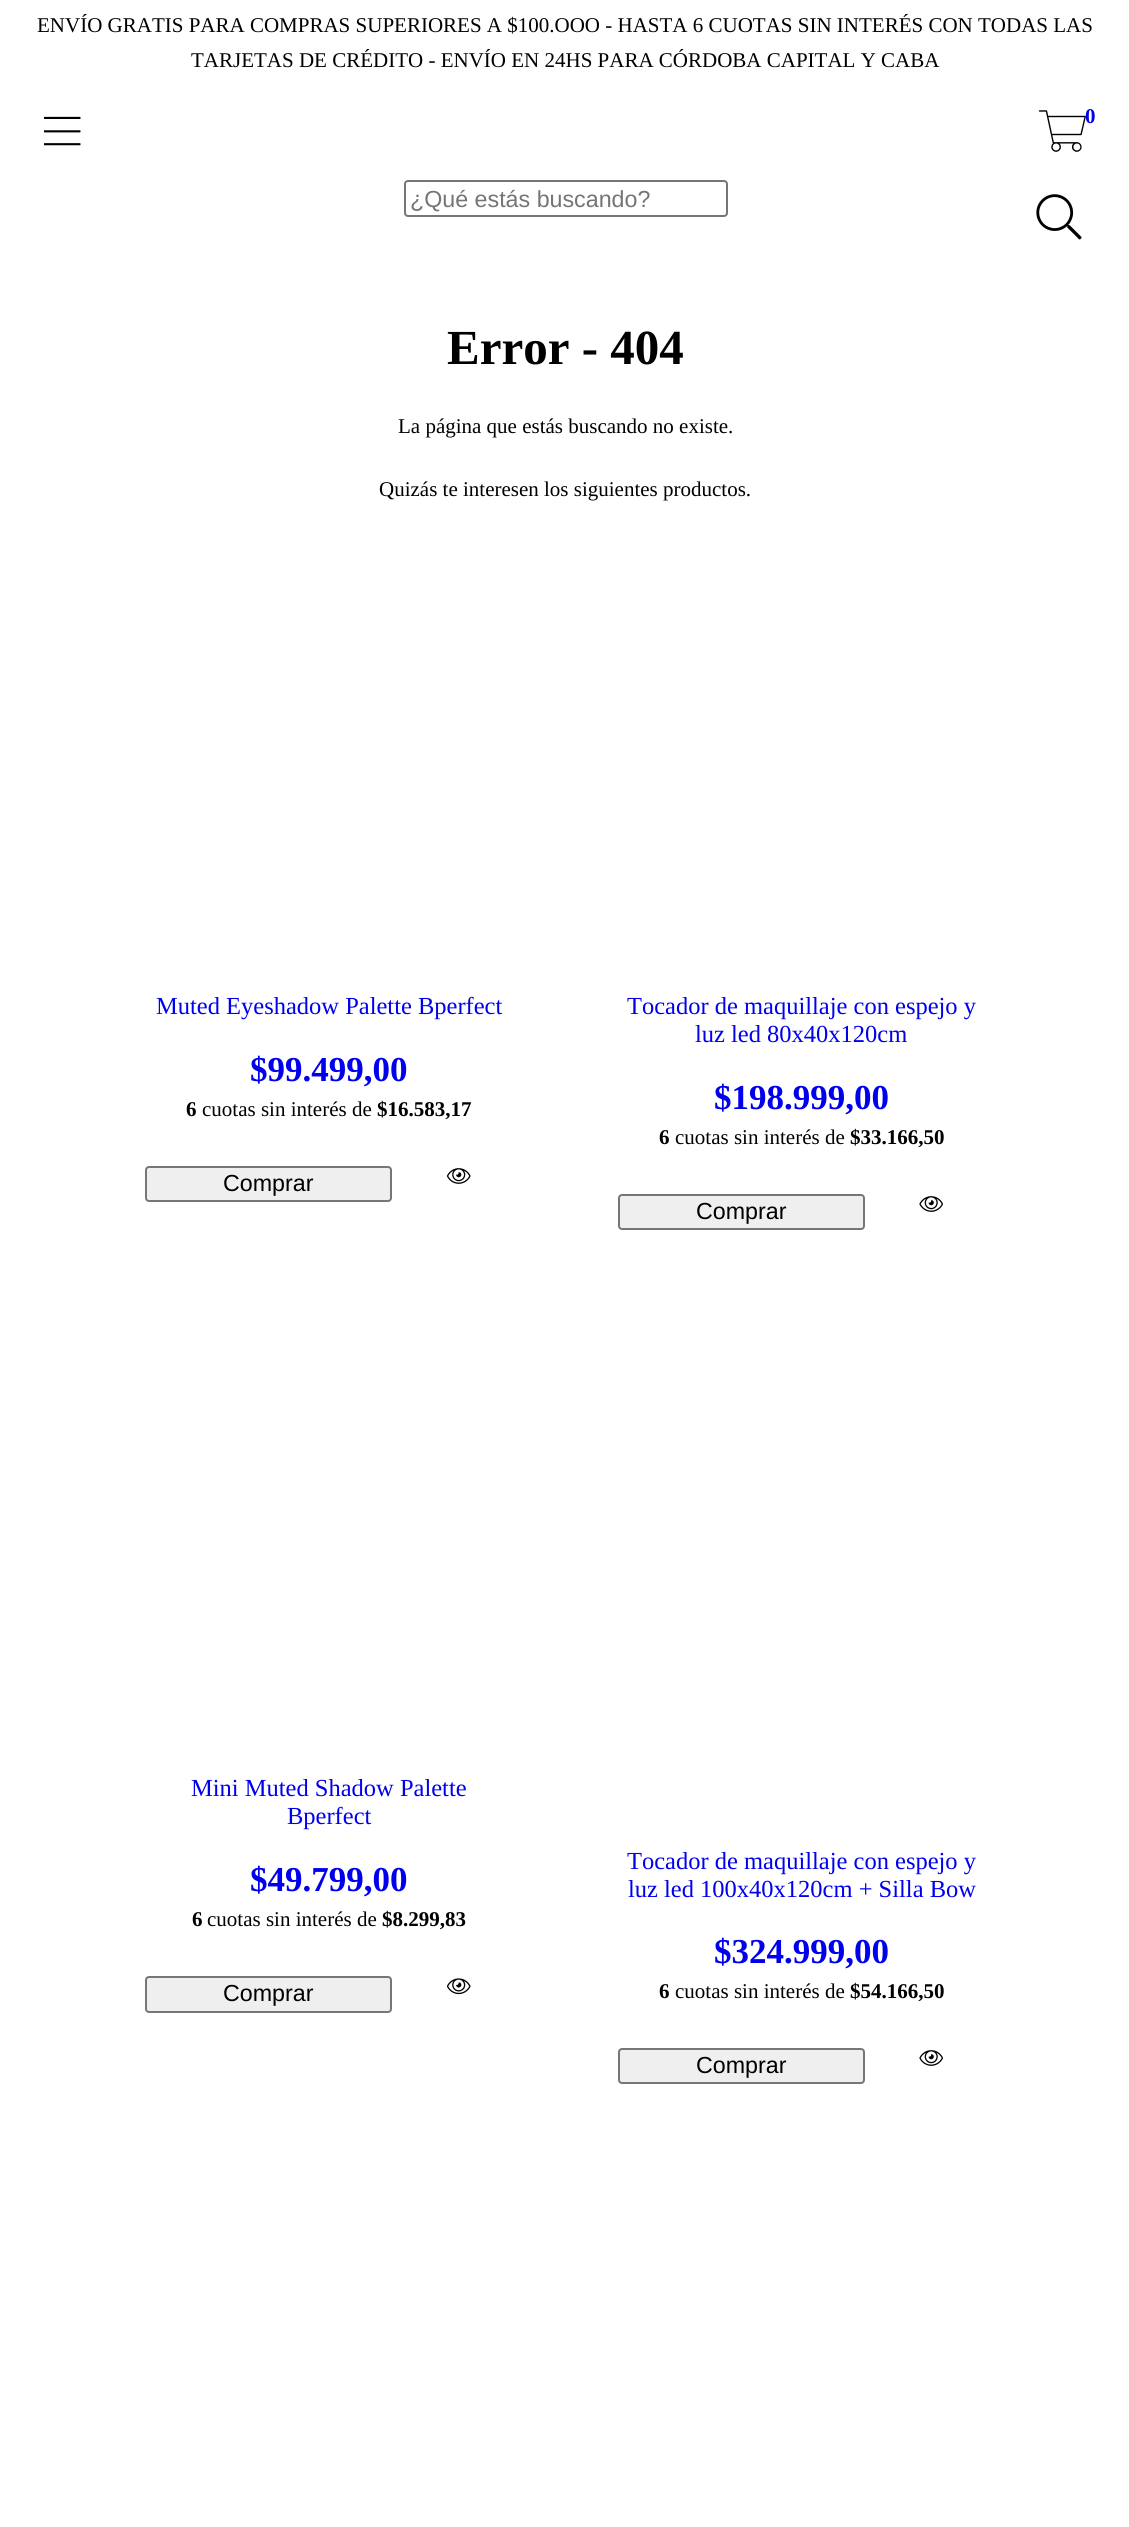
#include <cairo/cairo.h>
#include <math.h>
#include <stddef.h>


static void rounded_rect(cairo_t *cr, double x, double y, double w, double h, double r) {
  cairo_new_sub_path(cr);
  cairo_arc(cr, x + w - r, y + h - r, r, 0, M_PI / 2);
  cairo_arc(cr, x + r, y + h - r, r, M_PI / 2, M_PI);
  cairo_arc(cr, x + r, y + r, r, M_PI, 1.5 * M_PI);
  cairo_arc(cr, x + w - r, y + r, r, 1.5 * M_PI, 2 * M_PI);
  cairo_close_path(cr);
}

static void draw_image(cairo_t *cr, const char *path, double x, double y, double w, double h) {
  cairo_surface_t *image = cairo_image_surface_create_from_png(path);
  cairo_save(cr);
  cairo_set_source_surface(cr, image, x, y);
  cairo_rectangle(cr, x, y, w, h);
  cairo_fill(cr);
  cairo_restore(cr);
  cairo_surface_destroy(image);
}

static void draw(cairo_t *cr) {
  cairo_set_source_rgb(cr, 1, 1, 1);
  cairo_paint(cr);
  draw_image(cr, "images/1.png", 44, 116, 37, 30);
  draw_image(cr, "images/2.png", 1038, 110, 48, 42);
  rounded_rect(cr, 405, 181, 322, 35, 3);
  cairo_set_source_rgb(cr, 118 / 255.0, 118 / 255.0, 118 / 255.0);
  cairo_stroke(cr);
  draw_image(cr, "images/3.png", 1036, 194, 46, 46);
  cairo_set_source_rgb(cr, 239 / 255.0, 239 / 255.0, 239 / 255.0);
  rounded_rect(cr, 146, 1167, 245, 34, 3);
  cairo_fill_preserve(cr);
  cairo_set_source_rgb(cr, 118 / 255.0, 118 / 255.0, 118 / 255.0);
  cairo_stroke(cr);
  draw_image(cr, "images/4.png", 447, 1168, 24, 16);
  cairo_set_source_rgb(cr, 239 / 255.0, 239 / 255.0, 239 / 255.0);
  rounded_rect(cr, 619, 1195, 245, 34, 3);
  cairo_fill_preserve(cr);
  cairo_set_source_rgb(cr, 118 / 255.0, 118 / 255.0, 118 / 255.0);
  cairo_stroke(cr);
  draw_image(cr, "images/5.png", 919, 1196, 24, 16);
  cairo_set_source_rgb(cr, 239 / 255.0, 239 / 255.0, 239 / 255.0);
  rounded_rect(cr, 146, 1977, 245, 35, 3);
  cairo_fill_preserve(cr);
  cairo_set_source_rgb(cr, 118 / 255.0, 118 / 255.0, 118 / 255.0);
  cairo_stroke(cr);
  draw_image(cr, "images/6.png", 446, 1978, 25, 17);
  cairo_set_source_rgb(cr, 239 / 255.0, 239 / 255.0, 239 / 255.0);
  rounded_rect(cr, 619, 2049, 245, 34, 3);
  cairo_fill_preserve(cr);
  cairo_set_source_rgb(cr, 118 / 255.0, 118 / 255.0, 118 / 255.0);
  cairo_stroke(cr);
  draw_image(cr, "images/5.png", 919, 2050, 24, 16);
  cairo_select_font_face(cr, "Liberation Serif", CAIRO_FONT_SLANT_NORMAL, CAIRO_FONT_WEIGHT_NORMAL);
  cairo_set_font_size(cr, 21);
  cairo_set_source_rgb(cr, 0, 0, 0);
  cairo_move_to(cr, 37, 32);
  cairo_show_text(cr, "ENVÍO GRATIS PARA COMPRAS SUPERIORES A $100.OOO - HASTA 6 CUOTAS SIN INTERÉS CON TODAS LAS");
  cairo_move_to(cr, 191, 67);
  cairo_show_text(cr, "TARJETAS DE CRÉDITO - ENVÍO EN 24HS PARA CÓRDOBA CAPITAL Y CABA");
  cairo_select_font_face(cr, "Liberation Serif", CAIRO_FONT_SLANT_NORMAL, CAIRO_FONT_WEIGHT_BOLD);
  cairo_set_source_rgb(cr, 0, 0, 238 / 255.0);
  cairo_move_to(cr, 1085, 123);
  cairo_show_text(cr, "0");
  cairo_select_font_face(cr, "Liberation Sans", CAIRO_FONT_SLANT_NORMAL, CAIRO_FONT_WEIGHT_NORMAL);
  cairo_set_font_size(cr, 23.25);
  cairo_set_source_rgb(cr, 117 / 255.0, 117 / 255.0, 117 / 255.0);
  cairo_move_to(cr, 410, 207);
  cairo_show_text(cr, "¿Qué estás buscando?");
  cairo_select_font_face(cr, "Liberation Serif", CAIRO_FONT_SLANT_NORMAL, CAIRO_FONT_WEIGHT_BOLD);
  cairo_set_font_size(cr, 49);
  cairo_set_source_rgb(cr, 0, 0, 0);
  cairo_move_to(cr, 447, 364);
  cairo_show_text(cr, "Error - 404");
  cairo_select_font_face(cr, "Liberation Serif", CAIRO_FONT_SLANT_NORMAL, CAIRO_FONT_WEIGHT_NORMAL);
  cairo_set_font_size(cr, 21);
  cairo_move_to(cr, 398, 433);
  cairo_show_text(cr, "La página que estás buscando no existe.");
  cairo_move_to(cr, 379, 496);
  cairo_show_text(cr, "Quizás te interesen los siguientes productos.");
  cairo_set_font_size(cr, 24.5);
  cairo_set_source_rgb(cr, 0, 0, 238 / 255.0);
  cairo_move_to(cr, 156, 1014);
  cairo_show_text(cr, "Muted Eyeshadow Palette Bperfect");
  cairo_select_font_face(cr, "Liberation Serif", CAIRO_FONT_SLANT_NORMAL, CAIRO_FONT_WEIGHT_BOLD);
  cairo_set_font_size(cr, 35);
  cairo_move_to(cr, 250, 1081);
  cairo_show_text(cr, "$99.499,00");
  cairo_set_font_size(cr, 21);
  cairo_set_source_rgb(cr, 0, 0, 0);
  cairo_move_to(cr, 186, 1116);
  cairo_show_text(cr, "6");
  cairo_select_font_face(cr, "Liberation Serif", CAIRO_FONT_SLANT_NORMAL, CAIRO_FONT_WEIGHT_NORMAL);
  cairo_move_to(cr, 202, 1116);
  cairo_show_text(cr, "cuotas sin interés de");
  cairo_select_font_face(cr, "Liberation Serif", CAIRO_FONT_SLANT_NORMAL, CAIRO_FONT_WEIGHT_BOLD);
  cairo_move_to(cr, 377, 1116);
  cairo_show_text(cr, "$16.583,17");
  cairo_select_font_face(cr, "Liberation Sans", CAIRO_FONT_SLANT_NORMAL, CAIRO_FONT_WEIGHT_NORMAL);
  cairo_set_font_size(cr, 23.25);
  cairo_move_to(cr, 223, 1191);
  cairo_show_text(cr, "Comprar");
  cairo_select_font_face(cr, "Liberation Serif", CAIRO_FONT_SLANT_NORMAL, CAIRO_FONT_WEIGHT_NORMAL);
  cairo_set_font_size(cr, 24.5);
  cairo_set_source_rgb(cr, 0, 0, 238 / 255.0);
  cairo_move_to(cr, 627, 1014);
  cairo_show_text(cr, "Tocador de maquillaje con espejo y");
  cairo_move_to(cr, 695, 1042);
  cairo_show_text(cr, "luz led 80x40x120cm");
  cairo_select_font_face(cr, "Liberation Serif", CAIRO_FONT_SLANT_NORMAL, CAIRO_FONT_WEIGHT_BOLD);
  cairo_set_font_size(cr, 35);
  cairo_move_to(cr, 714, 1109);
  cairo_show_text(cr, "$198.999,00");
  cairo_set_font_size(cr, 21);
  cairo_set_source_rgb(cr, 0, 0, 0);
  cairo_move_to(cr, 659, 1144);
  cairo_show_text(cr, "6");
  cairo_select_font_face(cr, "Liberation Serif", CAIRO_FONT_SLANT_NORMAL, CAIRO_FONT_WEIGHT_NORMAL);
  cairo_move_to(cr, 675, 1144);
  cairo_show_text(cr, "cuotas sin interés de");
  cairo_select_font_face(cr, "Liberation Serif", CAIRO_FONT_SLANT_NORMAL, CAIRO_FONT_WEIGHT_BOLD);
  cairo_move_to(cr, 850, 1144);
  cairo_show_text(cr, "$33.166,50");
  cairo_select_font_face(cr, "Liberation Sans", CAIRO_FONT_SLANT_NORMAL, CAIRO_FONT_WEIGHT_NORMAL);
  cairo_set_font_size(cr, 23.25);
  cairo_move_to(cr, 696, 1219);
  cairo_show_text(cr, "Comprar");
  cairo_select_font_face(cr, "Liberation Serif", CAIRO_FONT_SLANT_NORMAL, CAIRO_FONT_WEIGHT_NORMAL);
  cairo_set_font_size(cr, 24.5);
  cairo_set_source_rgb(cr, 0, 0, 238 / 255.0);
  cairo_move_to(cr, 191, 1796);
  cairo_show_text(cr, "Mini Muted Shadow Palette");
  cairo_move_to(cr, 287, 1824);
  cairo_show_text(cr, "Bperfect");
  cairo_select_font_face(cr, "Liberation Serif", CAIRO_FONT_SLANT_NORMAL, CAIRO_FONT_WEIGHT_BOLD);
  cairo_set_font_size(cr, 35);
  cairo_move_to(cr, 250, 1891);
  cairo_show_text(cr, "$49.799,00");
  cairo_set_font_size(cr, 21);
  cairo_set_source_rgb(cr, 0, 0, 0);
  cairo_move_to(cr, 192, 1926);
  cairo_show_text(cr, "6");
  cairo_select_font_face(cr, "Liberation Serif", CAIRO_FONT_SLANT_NORMAL, CAIRO_FONT_WEIGHT_NORMAL);
  cairo_move_to(cr, 207, 1926);
  cairo_show_text(cr, "cuotas sin interés de");
  cairo_select_font_face(cr, "Liberation Serif", CAIRO_FONT_SLANT_NORMAL, CAIRO_FONT_WEIGHT_BOLD);
  cairo_move_to(cr, 382, 1926);
  cairo_show_text(cr, "$8.299,83");
  cairo_select_font_face(cr, "Liberation Sans", CAIRO_FONT_SLANT_NORMAL, CAIRO_FONT_WEIGHT_NORMAL);
  cairo_set_font_size(cr, 23.25);
  cairo_move_to(cr, 223, 2001);
  cairo_show_text(cr, "Comprar");
  cairo_select_font_face(cr, "Liberation Serif", CAIRO_FONT_SLANT_NORMAL, CAIRO_FONT_WEIGHT_NORMAL);
  cairo_set_font_size(cr, 24.5);
  cairo_set_source_rgb(cr, 0, 0, 238 / 255.0);
  cairo_move_to(cr, 627, 1869);
  cairo_show_text(cr, "Tocador de maquillaje con espejo y");
  cairo_move_to(cr, 628, 1897);
  cairo_show_text(cr, "luz led 100x40x120cm + Silla Bow");
  cairo_select_font_face(cr, "Liberation Serif", CAIRO_FONT_SLANT_NORMAL, CAIRO_FONT_WEIGHT_BOLD);
  cairo_set_font_size(cr, 35);
  cairo_move_to(cr, 714, 1963);
  cairo_show_text(cr, "$324.999,00");
  cairo_set_font_size(cr, 21);
  cairo_set_source_rgb(cr, 0, 0, 0);
  cairo_move_to(cr, 659, 1998);
  cairo_show_text(cr, "6");
  cairo_select_font_face(cr, "Liberation Serif", CAIRO_FONT_SLANT_NORMAL, CAIRO_FONT_WEIGHT_NORMAL);
  cairo_move_to(cr, 675, 1998);
  cairo_show_text(cr, "cuotas sin interés de");
  cairo_select_font_face(cr, "Liberation Serif", CAIRO_FONT_SLANT_NORMAL, CAIRO_FONT_WEIGHT_BOLD);
  cairo_move_to(cr, 850, 1998);
  cairo_show_text(cr, "$54.166,50");
  cairo_select_font_face(cr, "Liberation Sans", CAIRO_FONT_SLANT_NORMAL, CAIRO_FONT_WEIGHT_NORMAL);
  cairo_set_font_size(cr, 23.25);
  cairo_move_to(cr, 696, 2073);
  cairo_show_text(cr, "Comprar");
}

int main(void) {
  cairo_surface_t *surface = cairo_image_surface_create(CAIRO_FORMAT_RGB24, 1129, 2527);
  cairo_t *cr = cairo_create(surface);
  cairo_font_options_t *options = cairo_font_options_create();
  cairo_font_options_set_hint_metrics(options, CAIRO_HINT_METRICS_OFF);
  cairo_font_options_set_hint_style(options, CAIRO_HINT_STYLE_NONE);
  cairo_set_font_options(cr, options);
  cairo_set_miter_limit(cr, 4);
  draw(cr);
  cairo_surface_write_to_png(surface, "out.png");
  cairo_font_options_destroy(options);
  cairo_destroy(cr);
  cairo_surface_destroy(surface);
  return 0;
}
